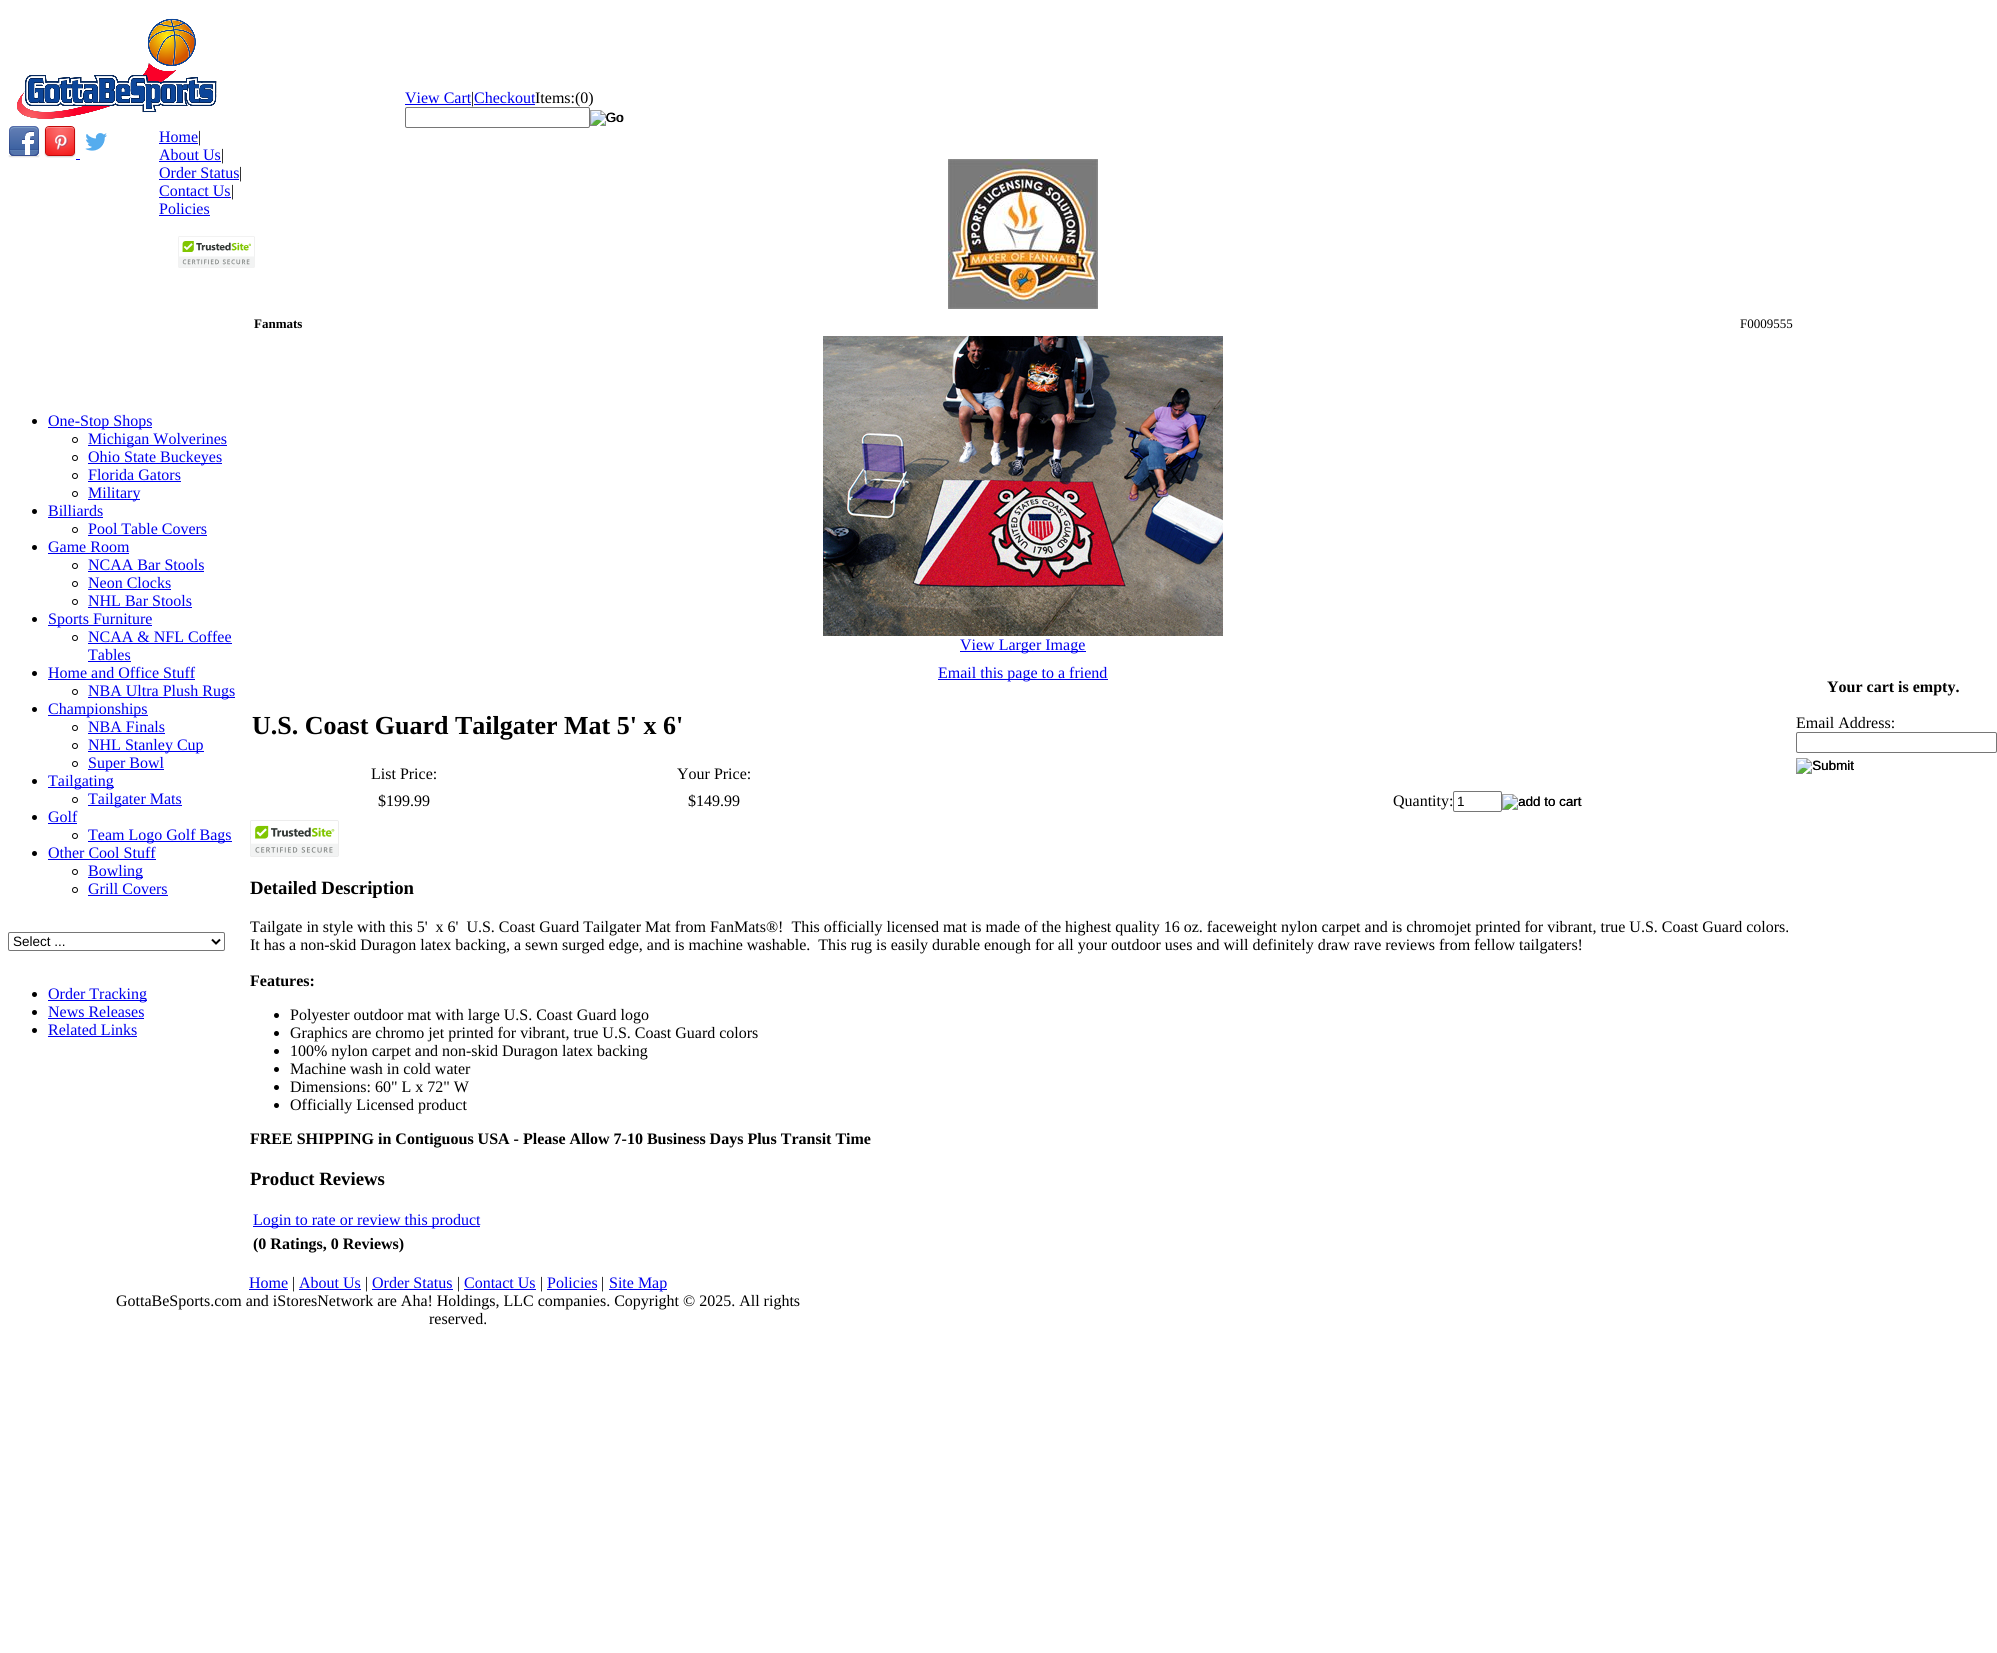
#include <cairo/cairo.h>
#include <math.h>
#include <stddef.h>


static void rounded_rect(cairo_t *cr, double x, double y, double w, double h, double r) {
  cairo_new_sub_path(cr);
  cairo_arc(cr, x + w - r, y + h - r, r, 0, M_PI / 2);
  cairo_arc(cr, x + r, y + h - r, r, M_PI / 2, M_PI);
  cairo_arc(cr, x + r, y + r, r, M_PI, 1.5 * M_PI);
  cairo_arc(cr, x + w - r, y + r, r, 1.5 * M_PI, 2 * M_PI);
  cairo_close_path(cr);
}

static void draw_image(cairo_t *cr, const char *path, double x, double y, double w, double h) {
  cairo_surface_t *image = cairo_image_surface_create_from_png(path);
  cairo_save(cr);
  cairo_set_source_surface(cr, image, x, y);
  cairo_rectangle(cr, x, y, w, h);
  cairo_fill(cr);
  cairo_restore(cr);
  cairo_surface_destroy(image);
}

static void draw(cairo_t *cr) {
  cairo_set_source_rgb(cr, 1, 1, 1);
  cairo_paint(cr);
  draw_image(cr, "images/1.png", 17, 18, 200, 101);
  cairo_set_source_rgb(cr, 0, 0, 238 / 255.0);
  cairo_rectangle(cr, 405, 104, 66, 1);
  cairo_fill(cr);
  cairo_rectangle(cr, 474, 104, 61, 1);
  cairo_fill(cr);
  rounded_rect(cr, 405.5, 107.5, 184, 20, 1.5);
  cairo_set_source_rgb(cr, 118 / 255.0, 118 / 255.0, 118 / 255.0);
  cairo_set_line_width(cr, 1);
  cairo_stroke(cr);
  draw_image(cr, "images/2.png", 590, 110, 33, 16);
  draw_image(cr, "images/3.png", 8, 126, 32, 32);
  draw_image(cr, "images/4.png", 44, 126, 32, 32);
  draw_image(cr, "images/5.png", 85, 133, 22, 18);
  cairo_set_source_rgb(cr, 0, 0, 238 / 255.0);
  cairo_rectangle(cr, 76, 159, 4, 1);
  cairo_fill(cr);
  cairo_rectangle(cr, 159, 143, 39, 1);
  cairo_fill(cr);
  cairo_rectangle(cr, 159, 161, 62, 1);
  cairo_fill(cr);
  cairo_rectangle(cr, 159, 179, 80, 1);
  cairo_fill(cr);
  cairo_rectangle(cr, 159, 197, 72, 1);
  cairo_fill(cr);
  cairo_rectangle(cr, 159, 215, 51, 1);
  cairo_fill(cr);
  draw_image(cr, "images/6.png", 178, 236, 77, 32);
  cairo_set_source_rgb(cr, 0, 0, 0);
  cairo_arc(cr, 34.5, 421.5, 2.5, 0, 2 * M_PI);
  cairo_fill(cr);
  cairo_set_source_rgb(cr, 0, 0, 238 / 255.0);
  cairo_rectangle(cr, 48, 427, 104, 1);
  cairo_fill(cr);
  cairo_arc(cr, 75, 440, 2.5, 0, 2 * M_PI);
  cairo_set_source_rgb(cr, 0, 0, 0);
  cairo_stroke(cr);
  cairo_set_source_rgb(cr, 0, 0, 238 / 255.0);
  cairo_rectangle(cr, 88, 445, 139, 1);
  cairo_fill(cr);
  cairo_arc(cr, 75, 458, 2.5, 0, 2 * M_PI);
  cairo_set_source_rgb(cr, 0, 0, 0);
  cairo_stroke(cr);
  cairo_set_source_rgb(cr, 0, 0, 238 / 255.0);
  cairo_rectangle(cr, 88, 463, 134, 1);
  cairo_fill(cr);
  cairo_arc(cr, 75, 476, 2.5, 0, 2 * M_PI);
  cairo_set_source_rgb(cr, 0, 0, 0);
  cairo_stroke(cr);
  cairo_set_source_rgb(cr, 0, 0, 238 / 255.0);
  cairo_rectangle(cr, 88, 481, 93, 1);
  cairo_fill(cr);
  cairo_arc(cr, 75, 494, 2.5, 0, 2 * M_PI);
  cairo_set_source_rgb(cr, 0, 0, 0);
  cairo_stroke(cr);
  cairo_set_source_rgb(cr, 0, 0, 238 / 255.0);
  cairo_rectangle(cr, 88, 499, 52, 1);
  cairo_fill(cr);
  cairo_set_source_rgb(cr, 0, 0, 0);
  cairo_arc(cr, 34.5, 511.5, 2.5, 0, 2 * M_PI);
  cairo_fill(cr);
  cairo_set_source_rgb(cr, 0, 0, 238 / 255.0);
  cairo_rectangle(cr, 48, 517, 55, 1);
  cairo_fill(cr);
  cairo_arc(cr, 75, 530, 2.5, 0, 2 * M_PI);
  cairo_set_source_rgb(cr, 0, 0, 0);
  cairo_stroke(cr);
  cairo_set_source_rgb(cr, 0, 0, 238 / 255.0);
  cairo_rectangle(cr, 88, 535, 119, 1);
  cairo_fill(cr);
  cairo_set_source_rgb(cr, 0, 0, 0);
  cairo_arc(cr, 34.5, 547.5, 2.5, 0, 2 * M_PI);
  cairo_fill(cr);
  cairo_set_source_rgb(cr, 0, 0, 238 / 255.0);
  cairo_rectangle(cr, 48, 553, 81, 1);
  cairo_fill(cr);
  cairo_arc(cr, 75, 566, 2.5, 0, 2 * M_PI);
  cairo_set_source_rgb(cr, 0, 0, 0);
  cairo_stroke(cr);
  cairo_set_source_rgb(cr, 0, 0, 238 / 255.0);
  cairo_rectangle(cr, 88, 571, 116, 1);
  cairo_fill(cr);
  cairo_arc(cr, 75, 584, 2.5, 0, 2 * M_PI);
  cairo_set_source_rgb(cr, 0, 0, 0);
  cairo_stroke(cr);
  cairo_set_source_rgb(cr, 0, 0, 238 / 255.0);
  cairo_rectangle(cr, 88, 589, 83, 1);
  cairo_fill(cr);
  cairo_arc(cr, 75, 602, 2.5, 0, 2 * M_PI);
  cairo_set_source_rgb(cr, 0, 0, 0);
  cairo_stroke(cr);
  cairo_set_source_rgb(cr, 0, 0, 238 / 255.0);
  cairo_rectangle(cr, 88, 607, 104, 1);
  cairo_fill(cr);
  cairo_set_source_rgb(cr, 0, 0, 0);
  cairo_arc(cr, 34.5, 619.5, 2.5, 0, 2 * M_PI);
  cairo_fill(cr);
  cairo_set_source_rgb(cr, 0, 0, 238 / 255.0);
  cairo_rectangle(cr, 48, 625, 104, 1);
  cairo_fill(cr);
  cairo_arc(cr, 75, 638, 2.5, 0, 2 * M_PI);
  cairo_set_source_rgb(cr, 0, 0, 0);
  cairo_stroke(cr);
  cairo_set_source_rgb(cr, 0, 0, 238 / 255.0);
  cairo_rectangle(cr, 88, 643, 144, 1);
  cairo_fill(cr);
  cairo_rectangle(cr, 88, 661, 43, 1);
  cairo_fill(cr);
  cairo_set_source_rgb(cr, 0, 0, 0);
  cairo_arc(cr, 34.5, 673.5, 2.5, 0, 2 * M_PI);
  cairo_fill(cr);
  cairo_set_source_rgb(cr, 0, 0, 238 / 255.0);
  cairo_rectangle(cr, 48, 679, 147, 1);
  cairo_fill(cr);
  cairo_arc(cr, 75, 692, 2.5, 0, 2 * M_PI);
  cairo_set_source_rgb(cr, 0, 0, 0);
  cairo_stroke(cr);
  cairo_set_source_rgb(cr, 0, 0, 238 / 255.0);
  cairo_rectangle(cr, 88, 697, 147, 1);
  cairo_fill(cr);
  cairo_set_source_rgb(cr, 0, 0, 0);
  cairo_arc(cr, 34.5, 709.5, 2.5, 0, 2 * M_PI);
  cairo_fill(cr);
  cairo_set_source_rgb(cr, 0, 0, 238 / 255.0);
  cairo_rectangle(cr, 48, 715, 100, 1);
  cairo_fill(cr);
  cairo_arc(cr, 75, 728, 2.5, 0, 2 * M_PI);
  cairo_set_source_rgb(cr, 0, 0, 0);
  cairo_stroke(cr);
  cairo_set_source_rgb(cr, 0, 0, 238 / 255.0);
  cairo_rectangle(cr, 88, 733, 77, 1);
  cairo_fill(cr);
  cairo_arc(cr, 75, 746, 2.5, 0, 2 * M_PI);
  cairo_set_source_rgb(cr, 0, 0, 0);
  cairo_stroke(cr);
  cairo_set_source_rgb(cr, 0, 0, 238 / 255.0);
  cairo_rectangle(cr, 88, 751, 116, 1);
  cairo_fill(cr);
  cairo_arc(cr, 75, 764, 2.5, 0, 2 * M_PI);
  cairo_set_source_rgb(cr, 0, 0, 0);
  cairo_stroke(cr);
  cairo_set_source_rgb(cr, 0, 0, 238 / 255.0);
  cairo_rectangle(cr, 88, 769, 76, 1);
  cairo_fill(cr);
  cairo_set_source_rgb(cr, 0, 0, 0);
  cairo_arc(cr, 34.5, 781.5, 2.5, 0, 2 * M_PI);
  cairo_fill(cr);
  cairo_set_source_rgb(cr, 0, 0, 238 / 255.0);
  cairo_rectangle(cr, 48, 787, 66, 1);
  cairo_fill(cr);
  cairo_arc(cr, 75, 800, 2.5, 0, 2 * M_PI);
  cairo_set_source_rgb(cr, 0, 0, 0);
  cairo_stroke(cr);
  cairo_set_source_rgb(cr, 0, 0, 238 / 255.0);
  cairo_rectangle(cr, 88, 805, 94, 1);
  cairo_fill(cr);
  cairo_set_source_rgb(cr, 0, 0, 0);
  cairo_arc(cr, 34.5, 817.5, 2.5, 0, 2 * M_PI);
  cairo_fill(cr);
  cairo_set_source_rgb(cr, 0, 0, 238 / 255.0);
  cairo_rectangle(cr, 48, 823, 29, 1);
  cairo_fill(cr);
  cairo_arc(cr, 75, 836, 2.5, 0, 2 * M_PI);
  cairo_set_source_rgb(cr, 0, 0, 0);
  cairo_stroke(cr);
  cairo_set_source_rgb(cr, 0, 0, 238 / 255.0);
  cairo_rectangle(cr, 88, 841, 144, 1);
  cairo_fill(cr);
  cairo_set_source_rgb(cr, 0, 0, 0);
  cairo_arc(cr, 34.5, 853.5, 2.5, 0, 2 * M_PI);
  cairo_fill(cr);
  cairo_set_source_rgb(cr, 0, 0, 238 / 255.0);
  cairo_rectangle(cr, 48, 859, 108, 1);
  cairo_fill(cr);
  cairo_arc(cr, 75, 872, 2.5, 0, 2 * M_PI);
  cairo_set_source_rgb(cr, 0, 0, 0);
  cairo_stroke(cr);
  cairo_set_source_rgb(cr, 0, 0, 238 / 255.0);
  cairo_rectangle(cr, 88, 877, 55, 1);
  cairo_fill(cr);
  cairo_arc(cr, 75, 890, 2.5, 0, 2 * M_PI);
  cairo_set_source_rgb(cr, 0, 0, 0);
  cairo_stroke(cr);
  cairo_set_source_rgb(cr, 0, 0, 238 / 255.0);
  cairo_rectangle(cr, 88, 895, 80, 1);
  cairo_fill(cr);
  rounded_rect(cr, 8.5, 932.5, 216, 18, 1.5);
  cairo_set_source_rgb(cr, 118 / 255.0, 118 / 255.0, 118 / 255.0);
  cairo_stroke(cr);
  cairo_new_path(cr);
  cairo_move_to(cr, 212, 939.5);
  cairo_line_to(cr, 216, 943.5);
  cairo_line_to(cr, 220, 939.5);
  cairo_set_source_rgb(cr, 0, 0, 0);
  cairo_set_line_width(cr, 2);
  cairo_stroke(cr);
  cairo_arc(cr, 34.5, 994.5, 2.5, 0, 2 * M_PI);
  cairo_fill(cr);
  cairo_set_source_rgb(cr, 0, 0, 238 / 255.0);
  cairo_rectangle(cr, 48, 1000, 99, 1);
  cairo_fill(cr);
  cairo_set_source_rgb(cr, 0, 0, 0);
  cairo_arc(cr, 34.5, 1012.5, 2.5, 0, 2 * M_PI);
  cairo_fill(cr);
  cairo_set_source_rgb(cr, 0, 0, 238 / 255.0);
  cairo_rectangle(cr, 48, 1018, 96, 1);
  cairo_fill(cr);
  cairo_set_source_rgb(cr, 0, 0, 0);
  cairo_arc(cr, 34.5, 1030.5, 2.5, 0, 2 * M_PI);
  cairo_fill(cr);
  cairo_set_source_rgb(cr, 0, 0, 238 / 255.0);
  cairo_rectangle(cr, 48, 1036, 89, 1);
  cairo_fill(cr);
  draw_image(cr, "images/7.png", 948, 159, 150, 150);
  draw_image(cr, "images/8.png", 823, 336, 400, 300);
  cairo_rectangle(cr, 960, 651, 126, 1);
  cairo_fill(cr);
  cairo_rectangle(cr, 938, 679, 170, 1);
  cairo_fill(cr);
  rounded_rect(cr, 1453.5, 791.5, 48, 20, 1.5);
  cairo_set_source_rgb(cr, 118 / 255.0, 118 / 255.0, 118 / 255.0);
  cairo_set_line_width(cr, 1);
  cairo_stroke(cr);
  draw_image(cr, "images/9.png", 1502, 794, 79, 16);
  draw_image(cr, "images/10.png", 250, 820, 89, 37);
  cairo_set_source_rgb(cr, 0, 0, 0);
  cairo_arc(cr, 276.5, 1015.5, 2.5, 0, 2 * M_PI);
  cairo_fill(cr);
  cairo_arc(cr, 276.5, 1033.5, 2.5, 0, 2 * M_PI);
  cairo_fill(cr);
  cairo_arc(cr, 276.5, 1051.5, 2.5, 0, 2 * M_PI);
  cairo_fill(cr);
  cairo_arc(cr, 276.5, 1069.5, 2.5, 0, 2 * M_PI);
  cairo_fill(cr);
  cairo_arc(cr, 276.5, 1087.5, 2.5, 0, 2 * M_PI);
  cairo_fill(cr);
  cairo_arc(cr, 276.5, 1105.5, 2.5, 0, 2 * M_PI);
  cairo_fill(cr);
  cairo_set_source_rgb(cr, 0, 0, 238 / 255.0);
  cairo_rectangle(cr, 253, 1226, 227, 1);
  cairo_fill(cr);
  rounded_rect(cr, 1796.5, 732.5, 200, 20, 1.5);
  cairo_set_source_rgb(cr, 118 / 255.0, 118 / 255.0, 118 / 255.0);
  cairo_stroke(cr);
  draw_image(cr, "images/11.png", 1796, 758, 58, 16);
  cairo_set_source_rgb(cr, 0, 0, 238 / 255.0);
  cairo_rectangle(cr, 249, 1289, 39, 1);
  cairo_fill(cr);
  cairo_rectangle(cr, 299, 1289, 62, 1);
  cairo_fill(cr);
  cairo_rectangle(cr, 372, 1289, 81, 1);
  cairo_fill(cr);
  cairo_rectangle(cr, 464, 1289, 72, 1);
  cairo_fill(cr);
  cairo_rectangle(cr, 547, 1289, 50, 1);
  cairo_fill(cr);
  cairo_rectangle(cr, 609, 1289, 58, 1);
  cairo_fill(cr);
  cairo_select_font_face(cr, "Liberation Serif", CAIRO_FONT_SLANT_NORMAL, CAIRO_FONT_WEIGHT_NORMAL);
  cairo_set_font_size(cr, 16);
  cairo_move_to(cr, 405, 103);
  cairo_show_text(cr, "View Cart");
  cairo_set_source_rgb(cr, 0, 0, 0);
  cairo_move_to(cr, 471, 103);
  cairo_show_text(cr, "|");
  cairo_set_source_rgb(cr, 0, 0, 238 / 255.0);
  cairo_move_to(cr, 474, 103);
  cairo_show_text(cr, "Checkout");
  cairo_set_source_rgb(cr, 0, 0, 0);
  cairo_move_to(cr, 535, 103);
  cairo_show_text(cr, "Items:(0)");
  cairo_select_font_face(cr, "Liberation Sans", CAIRO_FONT_SLANT_NORMAL, CAIRO_FONT_WEIGHT_NORMAL);
  cairo_set_font_size(cr, 13.5);
  cairo_move_to(cr, 606, 122);
  cairo_show_text(cr, "Go");
  cairo_select_font_face(cr, "Liberation Serif", CAIRO_FONT_SLANT_NORMAL, CAIRO_FONT_WEIGHT_NORMAL);
  cairo_set_font_size(cr, 16);
  cairo_set_source_rgb(cr, 0, 0, 238 / 255.0);
  cairo_move_to(cr, 159, 142);
  cairo_show_text(cr, "Home");
  cairo_set_source_rgb(cr, 0, 0, 0);
  cairo_move_to(cr, 198, 142);
  cairo_show_text(cr, "|");
  cairo_set_source_rgb(cr, 0, 0, 238 / 255.0);
  cairo_move_to(cr, 159, 160);
  cairo_show_text(cr, "About Us");
  cairo_set_source_rgb(cr, 0, 0, 0);
  cairo_move_to(cr, 221, 160);
  cairo_show_text(cr, "|");
  cairo_set_source_rgb(cr, 0, 0, 238 / 255.0);
  cairo_move_to(cr, 159, 178);
  cairo_show_text(cr, "Order Status");
  cairo_set_source_rgb(cr, 0, 0, 0);
  cairo_move_to(cr, 239, 178);
  cairo_show_text(cr, "|");
  cairo_set_source_rgb(cr, 0, 0, 238 / 255.0);
  cairo_move_to(cr, 159, 196);
  cairo_show_text(cr, "Contact Us");
  cairo_set_source_rgb(cr, 0, 0, 0);
  cairo_move_to(cr, 231, 196);
  cairo_show_text(cr, "|");
  cairo_set_source_rgb(cr, 0, 0, 238 / 255.0);
  cairo_move_to(cr, 159, 214);
  cairo_show_text(cr, "Policies");
  cairo_move_to(cr, 48, 426);
  cairo_show_text(cr, "One-Stop Shops");
  cairo_move_to(cr, 88, 444);
  cairo_show_text(cr, "Michigan Wolverines");
  cairo_move_to(cr, 88, 462);
  cairo_show_text(cr, "Ohio State Buckeyes");
  cairo_move_to(cr, 88, 480);
  cairo_show_text(cr, "Florida Gators");
  cairo_move_to(cr, 88, 498);
  cairo_show_text(cr, "Military");
  cairo_move_to(cr, 48, 516);
  cairo_show_text(cr, "Billiards");
  cairo_move_to(cr, 88, 534);
  cairo_show_text(cr, "Pool Table Covers");
  cairo_move_to(cr, 48, 552);
  cairo_show_text(cr, "Game Room");
  cairo_move_to(cr, 88, 570);
  cairo_show_text(cr, "NCAA Bar Stools");
  cairo_move_to(cr, 88, 588);
  cairo_show_text(cr, "Neon Clocks");
  cairo_move_to(cr, 88, 606);
  cairo_show_text(cr, "NHL Bar Stools");
  cairo_move_to(cr, 48, 624);
  cairo_show_text(cr, "Sports Furniture");
  cairo_move_to(cr, 88, 642);
  cairo_show_text(cr, "NCAA & NFL Coffee");
  cairo_move_to(cr, 88, 660);
  cairo_show_text(cr, "Tables");
  cairo_move_to(cr, 48, 678);
  cairo_show_text(cr, "Home and Office Stuff");
  cairo_move_to(cr, 88, 696);
  cairo_show_text(cr, "NBA Ultra Plush Rugs");
  cairo_move_to(cr, 48, 714);
  cairo_show_text(cr, "Championships");
  cairo_move_to(cr, 88, 732);
  cairo_show_text(cr, "NBA Finals");
  cairo_move_to(cr, 88, 750);
  cairo_show_text(cr, "NHL Stanley Cup");
  cairo_move_to(cr, 88, 768);
  cairo_show_text(cr, "Super Bowl");
  cairo_move_to(cr, 48, 786);
  cairo_show_text(cr, "Tailgating");
  cairo_move_to(cr, 88, 804);
  cairo_show_text(cr, "Tailgater Mats");
  cairo_move_to(cr, 48, 822);
  cairo_show_text(cr, "Golf");
  cairo_move_to(cr, 88, 840);
  cairo_show_text(cr, "Team Logo Golf Bags");
  cairo_move_to(cr, 48, 858);
  cairo_show_text(cr, "Other Cool Stuff");
  cairo_move_to(cr, 88, 876);
  cairo_show_text(cr, "Bowling");
  cairo_move_to(cr, 88, 894);
  cairo_show_text(cr, "Grill Covers");
  cairo_select_font_face(cr, "Liberation Sans", CAIRO_FONT_SLANT_NORMAL, CAIRO_FONT_WEIGHT_NORMAL);
  cairo_set_font_size(cr, 13.5);
  cairo_set_source_rgb(cr, 0, 0, 0);
  cairo_move_to(cr, 13, 946);
  cairo_show_text(cr, "Select ...");
  cairo_select_font_face(cr, "Liberation Serif", CAIRO_FONT_SLANT_NORMAL, CAIRO_FONT_WEIGHT_NORMAL);
  cairo_set_font_size(cr, 16);
  cairo_set_source_rgb(cr, 0, 0, 238 / 255.0);
  cairo_move_to(cr, 48, 999);
  cairo_show_text(cr, "Order Tracking");
  cairo_move_to(cr, 48, 1017);
  cairo_show_text(cr, "News Releases");
  cairo_move_to(cr, 48, 1035);
  cairo_show_text(cr, "Related Links");
  cairo_select_font_face(cr, "Liberation Serif", CAIRO_FONT_SLANT_NORMAL, CAIRO_FONT_WEIGHT_BOLD);
  cairo_set_font_size(cr, 13);
  cairo_set_source_rgb(cr, 0, 0, 0);
  cairo_move_to(cr, 254, 328);
  cairo_show_text(cr, "Fanmats");
  cairo_select_font_face(cr, "Liberation Serif", CAIRO_FONT_SLANT_NORMAL, CAIRO_FONT_WEIGHT_NORMAL);
  cairo_move_to(cr, 1740, 328);
  cairo_show_text(cr, "F0009555");
  cairo_set_font_size(cr, 16);
  cairo_set_source_rgb(cr, 0, 0, 238 / 255.0);
  cairo_move_to(cr, 960, 650);
  cairo_show_text(cr, "View Larger Image");
  cairo_move_to(cr, 938, 678);
  cairo_show_text(cr, "Email this page to a friend");
  cairo_select_font_face(cr, "Liberation Serif", CAIRO_FONT_SLANT_NORMAL, CAIRO_FONT_WEIGHT_BOLD);
  cairo_set_font_size(cr, 26);
  cairo_set_source_rgb(cr, 0, 0, 0);
  cairo_move_to(cr, 252, 734);
  cairo_show_text(cr, "U.S. Coast Guard Tailgater Mat 5' x 6'");
  cairo_select_font_face(cr, "Liberation Serif", CAIRO_FONT_SLANT_NORMAL, CAIRO_FONT_WEIGHT_NORMAL);
  cairo_set_font_size(cr, 16);
  cairo_move_to(cr, 371, 779);
  cairo_show_text(cr, "List Price:");
  cairo_move_to(cr, 677, 779);
  cairo_show_text(cr, "Your Price:");
  cairo_move_to(cr, 378, 806);
  cairo_show_text(cr, "$199.99");
  cairo_move_to(cr, 688, 806);
  cairo_show_text(cr, "$149.99");
  cairo_move_to(cr, 1393, 806);
  cairo_show_text(cr, "Quantity:");
  cairo_select_font_face(cr, "Liberation Sans", CAIRO_FONT_SLANT_NORMAL, CAIRO_FONT_WEIGHT_NORMAL);
  cairo_set_font_size(cr, 13.5);
  cairo_move_to(cr, 1457, 806);
  cairo_show_text(cr, "1");
  cairo_move_to(cr, 1518, 806);
  cairo_show_text(cr, "add to cart");
  cairo_select_font_face(cr, "Liberation Serif", CAIRO_FONT_SLANT_NORMAL, CAIRO_FONT_WEIGHT_BOLD);
  cairo_set_font_size(cr, 18.75);
  cairo_move_to(cr, 250, 894);
  cairo_show_text(cr, "Detailed Description");
  cairo_select_font_face(cr, "Liberation Serif", CAIRO_FONT_SLANT_NORMAL, CAIRO_FONT_WEIGHT_NORMAL);
  cairo_set_font_size(cr, 16);
  cairo_move_to(cr, 250, 932);
  cairo_show_text(cr, "Tailgate in style with this 5'  x 6'  U.S. Coast Guard Tailgater Mat from FanMats®!  This officially licensed mat is made of the highest quality 16 oz. faceweight nylon carpet and is chromojet printed for vibrant, true U.S. Coast Guard colors.");
  cairo_move_to(cr, 250, 950);
  cairo_show_text(cr, "It has a non-skid Duragon latex backing, a sewn surged edge, and is machine washable.  This rug is easily durable enough for all your outdoor uses and will definitely draw rave reviews from fellow tailgaters!");
  cairo_select_font_face(cr, "Liberation Serif", CAIRO_FONT_SLANT_NORMAL, CAIRO_FONT_WEIGHT_BOLD);
  cairo_move_to(cr, 250, 986);
  cairo_show_text(cr, "Features:");
  cairo_select_font_face(cr, "Liberation Serif", CAIRO_FONT_SLANT_NORMAL, CAIRO_FONT_WEIGHT_NORMAL);
  cairo_move_to(cr, 290, 1020);
  cairo_show_text(cr, "Polyester outdoor mat with large U.S. Coast Guard logo");
  cairo_move_to(cr, 290, 1038);
  cairo_show_text(cr, "Graphics are chromo jet printed for vibrant, true U.S. Coast Guard colors");
  cairo_move_to(cr, 290, 1056);
  cairo_show_text(cr, "100% nylon carpet and non-skid Duragon latex backing");
  cairo_move_to(cr, 290, 1074);
  cairo_show_text(cr, "Machine wash in cold water");
  cairo_move_to(cr, 290, 1092);
  cairo_show_text(cr, "Dimensions: 60\" L x 72\" W");
  cairo_move_to(cr, 290, 1110);
  cairo_show_text(cr, "Officially Licensed product");
  cairo_select_font_face(cr, "Liberation Serif", CAIRO_FONT_SLANT_NORMAL, CAIRO_FONT_WEIGHT_BOLD);
  cairo_move_to(cr, 250, 1144);
  cairo_show_text(cr, "FREE SHIPPING in Contiguous USA - Please Allow 7-10 Business Days Plus Transit Time");
  cairo_set_font_size(cr, 18.75);
  cairo_move_to(cr, 250, 1185);
  cairo_show_text(cr, "Product Reviews");
  cairo_select_font_face(cr, "Liberation Serif", CAIRO_FONT_SLANT_NORMAL, CAIRO_FONT_WEIGHT_NORMAL);
  cairo_set_font_size(cr, 16);
  cairo_set_source_rgb(cr, 0, 0, 238 / 255.0);
  cairo_move_to(cr, 253, 1225);
  cairo_show_text(cr, "Login to rate or review this product");
  cairo_select_font_face(cr, "Liberation Serif", CAIRO_FONT_SLANT_NORMAL, CAIRO_FONT_WEIGHT_BOLD);
  cairo_set_source_rgb(cr, 0, 0, 0);
  cairo_move_to(cr, 253, 1249);
  cairo_show_text(cr, "(0 Ratings, 0 Reviews)");
  cairo_move_to(cr, 1827, 692);
  cairo_show_text(cr, "Your cart is empty.");
  cairo_select_font_face(cr, "Liberation Serif", CAIRO_FONT_SLANT_NORMAL, CAIRO_FONT_WEIGHT_NORMAL);
  cairo_move_to(cr, 1796, 728);
  cairo_show_text(cr, "Email Address:");
  cairo_select_font_face(cr, "Liberation Sans", CAIRO_FONT_SLANT_NORMAL, CAIRO_FONT_WEIGHT_NORMAL);
  cairo_set_font_size(cr, 13.5);
  cairo_move_to(cr, 1812, 770);
  cairo_show_text(cr, "Submit");
  cairo_select_font_face(cr, "Liberation Serif", CAIRO_FONT_SLANT_NORMAL, CAIRO_FONT_WEIGHT_NORMAL);
  cairo_set_font_size(cr, 16);
  cairo_set_source_rgb(cr, 0, 0, 238 / 255.0);
  cairo_move_to(cr, 249, 1288);
  cairo_show_text(cr, "Home");
  cairo_set_source_rgb(cr, 0, 0, 0);
  cairo_move_to(cr, 292, 1288);
  cairo_show_text(cr, "|");
  cairo_set_source_rgb(cr, 0, 0, 238 / 255.0);
  cairo_move_to(cr, 299, 1288);
  cairo_show_text(cr, "About Us");
  cairo_set_source_rgb(cr, 0, 0, 0);
  cairo_move_to(cr, 365, 1288);
  cairo_show_text(cr, "|");
  cairo_set_source_rgb(cr, 0, 0, 238 / 255.0);
  cairo_move_to(cr, 372, 1288);
  cairo_show_text(cr, "Order Status");
  cairo_set_source_rgb(cr, 0, 0, 0);
  cairo_move_to(cr, 457, 1288);
  cairo_show_text(cr, "|");
  cairo_set_source_rgb(cr, 0, 0, 238 / 255.0);
  cairo_move_to(cr, 464, 1288);
  cairo_show_text(cr, "Contact Us");
  cairo_set_source_rgb(cr, 0, 0, 0);
  cairo_move_to(cr, 540, 1288);
  cairo_show_text(cr, "|");
  cairo_set_source_rgb(cr, 0, 0, 238 / 255.0);
  cairo_move_to(cr, 547, 1288);
  cairo_show_text(cr, "Policies");
  cairo_set_source_rgb(cr, 0, 0, 0);
  cairo_move_to(cr, 601, 1288);
  cairo_show_text(cr, "|");
  cairo_set_source_rgb(cr, 0, 0, 238 / 255.0);
  cairo_move_to(cr, 609, 1288);
  cairo_show_text(cr, "Site Map");
  cairo_set_source_rgb(cr, 0, 0, 0);
  cairo_move_to(cr, 116, 1306);
  cairo_show_text(cr, "GottaBeSports.com and iStoresNetwork are Aha! Holdings, LLC companies. Copyright © 2025. All rights");
  cairo_move_to(cr, 429, 1324);
  cairo_show_text(cr, "reserved.");
}

int main(void) {
  cairo_surface_t *surface = cairo_image_surface_create(CAIRO_FORMAT_RGB24, 1997, 1653);
  cairo_t *cr = cairo_create(surface);
  cairo_font_options_t *options = cairo_font_options_create();
  cairo_font_options_set_hint_metrics(options, CAIRO_HINT_METRICS_OFF);
  cairo_font_options_set_hint_style(options, CAIRO_HINT_STYLE_NONE);
  cairo_set_font_options(cr, options);
  cairo_set_miter_limit(cr, 4);
  draw(cr);
  cairo_surface_write_to_png(surface, "out.png");
  cairo_font_options_destroy(options);
  cairo_destroy(cr);
  cairo_surface_destroy(surface);
  return 0;
}
